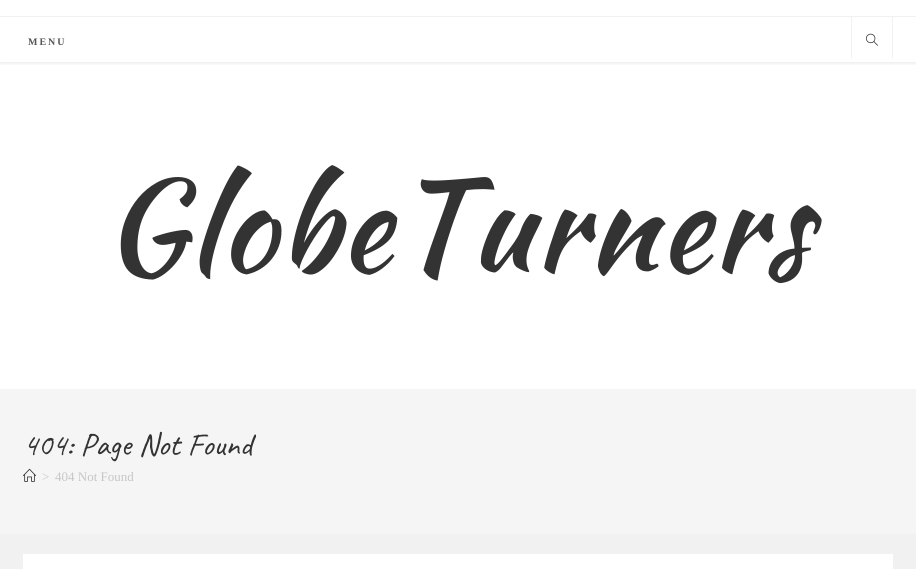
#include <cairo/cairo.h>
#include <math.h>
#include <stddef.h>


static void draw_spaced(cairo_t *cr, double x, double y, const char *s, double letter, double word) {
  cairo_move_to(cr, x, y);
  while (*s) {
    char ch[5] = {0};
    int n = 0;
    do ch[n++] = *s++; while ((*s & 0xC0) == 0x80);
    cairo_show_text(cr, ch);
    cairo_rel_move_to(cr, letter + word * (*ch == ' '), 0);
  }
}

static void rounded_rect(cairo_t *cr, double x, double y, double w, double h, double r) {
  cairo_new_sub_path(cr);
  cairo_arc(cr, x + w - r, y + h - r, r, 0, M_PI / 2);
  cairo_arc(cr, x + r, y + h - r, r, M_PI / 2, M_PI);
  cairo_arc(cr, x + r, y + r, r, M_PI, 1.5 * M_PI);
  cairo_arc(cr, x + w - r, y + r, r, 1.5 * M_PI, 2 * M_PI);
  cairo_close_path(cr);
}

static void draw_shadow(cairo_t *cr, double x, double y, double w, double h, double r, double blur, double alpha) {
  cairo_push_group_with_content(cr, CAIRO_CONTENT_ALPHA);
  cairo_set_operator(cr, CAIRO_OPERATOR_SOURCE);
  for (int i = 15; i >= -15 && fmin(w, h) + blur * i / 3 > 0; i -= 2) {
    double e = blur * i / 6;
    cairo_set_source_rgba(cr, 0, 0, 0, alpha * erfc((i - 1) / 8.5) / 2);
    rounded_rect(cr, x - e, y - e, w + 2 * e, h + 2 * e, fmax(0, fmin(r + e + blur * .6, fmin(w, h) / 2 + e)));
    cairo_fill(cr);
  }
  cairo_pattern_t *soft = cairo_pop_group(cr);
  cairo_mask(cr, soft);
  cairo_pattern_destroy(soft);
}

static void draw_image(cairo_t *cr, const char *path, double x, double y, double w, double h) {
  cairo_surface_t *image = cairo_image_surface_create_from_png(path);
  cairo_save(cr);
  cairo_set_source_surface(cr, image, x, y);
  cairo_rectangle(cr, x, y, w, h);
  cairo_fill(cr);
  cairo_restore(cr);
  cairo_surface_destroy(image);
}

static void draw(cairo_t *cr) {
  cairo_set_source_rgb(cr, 241 / 255.0, 241 / 255.0, 241 / 255.0);
  cairo_paint(cr);
  cairo_set_source_rgb(cr, 1, 1, 1);
  cairo_rectangle(cr, 0, 17, 916, 372);
  cairo_fill(cr);
  cairo_save(cr);
  cairo_rectangle(cr, 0, 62, 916, 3);
  cairo_clip(cr);
  cairo_set_source_rgb(cr, 0, 0, 0);
  draw_shadow(cr, 0, 18, 916, 45, 0, 2.5, 0.1);
  cairo_restore(cr);
  cairo_rectangle(cr, 0, 0, 916, 16);
  cairo_fill(cr);
  cairo_set_source_rgb(cr, 241 / 255.0, 241 / 255.0, 241 / 255.0);
  cairo_rectangle(cr, 0, 16, 916, 1);
  cairo_fill(cr);
  cairo_rectangle(cr, 892, 17, 1, 41);
  cairo_fill(cr);
  cairo_rectangle(cr, 851, 17, 1, 41);
  cairo_fill(cr);
  draw_image(cr, "images/1.png", 866, 33, 12, 13);
  cairo_set_source_rgb(cr, 245 / 255.0, 245 / 255.0, 245 / 255.0);
  cairo_rectangle(cr, 0, 389, 916, 145);
  cairo_fill(cr);
  draw_image(cr, "images/2.png", 23, 468, 13, 14);
  cairo_set_source_rgb(cr, 1, 1, 1);
  cairo_rectangle(cr, 23, 554, 870, 15);
  cairo_fill(cr);
  cairo_select_font_face(cr, "Liberation Serif", CAIRO_FONT_SLANT_NORMAL, CAIRO_FONT_WEIGHT_BOLD);
  cairo_set_font_size(cr, 10);
  cairo_set_source_rgb(cr, 85 / 255.0, 85 / 255.0, 85 / 255.0);
  draw_spaced(cr, 28, 45, "MENU", 2, 0);
  cairo_select_font_face(cr, "Kaushan Script", CAIRO_FONT_SLANT_NORMAL, CAIRO_FONT_WEIGHT_NORMAL);
  cairo_set_font_size(cr, 126);
  cairo_set_source_rgb(cr, 51 / 255.0, 51 / 255.0, 51 / 255.0);
  draw_spaced(cr, 103, 270, "GlobeTurners", 2.6, 0);
  cairo_select_font_face(cr, "Caveat", CAIRO_FONT_SLANT_NORMAL, CAIRO_FONT_WEIGHT_NORMAL);
  cairo_set_font_size(cr, 32);
  cairo_move_to(cr, 23, 455);
  cairo_show_text(cr, "404: Page Not Found");
  cairo_select_font_face(cr, "Liberation Serif", CAIRO_FONT_SLANT_NORMAL, CAIRO_FONT_WEIGHT_NORMAL);
  cairo_set_font_size(cr, 13);
  cairo_set_source_rgb(cr, 198 / 255.0, 198 / 255.0, 198 / 255.0);
  cairo_move_to(cr, 42, 481);
  cairo_show_text(cr, ">");
  cairo_move_to(cr, 55, 481);
  cairo_show_text(cr, "404 Not Found");
}

int main(void) {
  cairo_surface_t *surface = cairo_image_surface_create(CAIRO_FORMAT_RGB24, 916, 569);
  cairo_t *cr = cairo_create(surface);
  cairo_font_options_t *options = cairo_font_options_create();
  cairo_font_options_set_hint_metrics(options, CAIRO_HINT_METRICS_OFF);
  cairo_font_options_set_hint_style(options, CAIRO_HINT_STYLE_NONE);
  cairo_set_font_options(cr, options);
  cairo_set_miter_limit(cr, 4);
  draw(cr);
  cairo_surface_write_to_png(surface, "out.png");
  cairo_font_options_destroy(options);
  cairo_destroy(cr);
  cairo_surface_destroy(surface);
  return 0;
}
